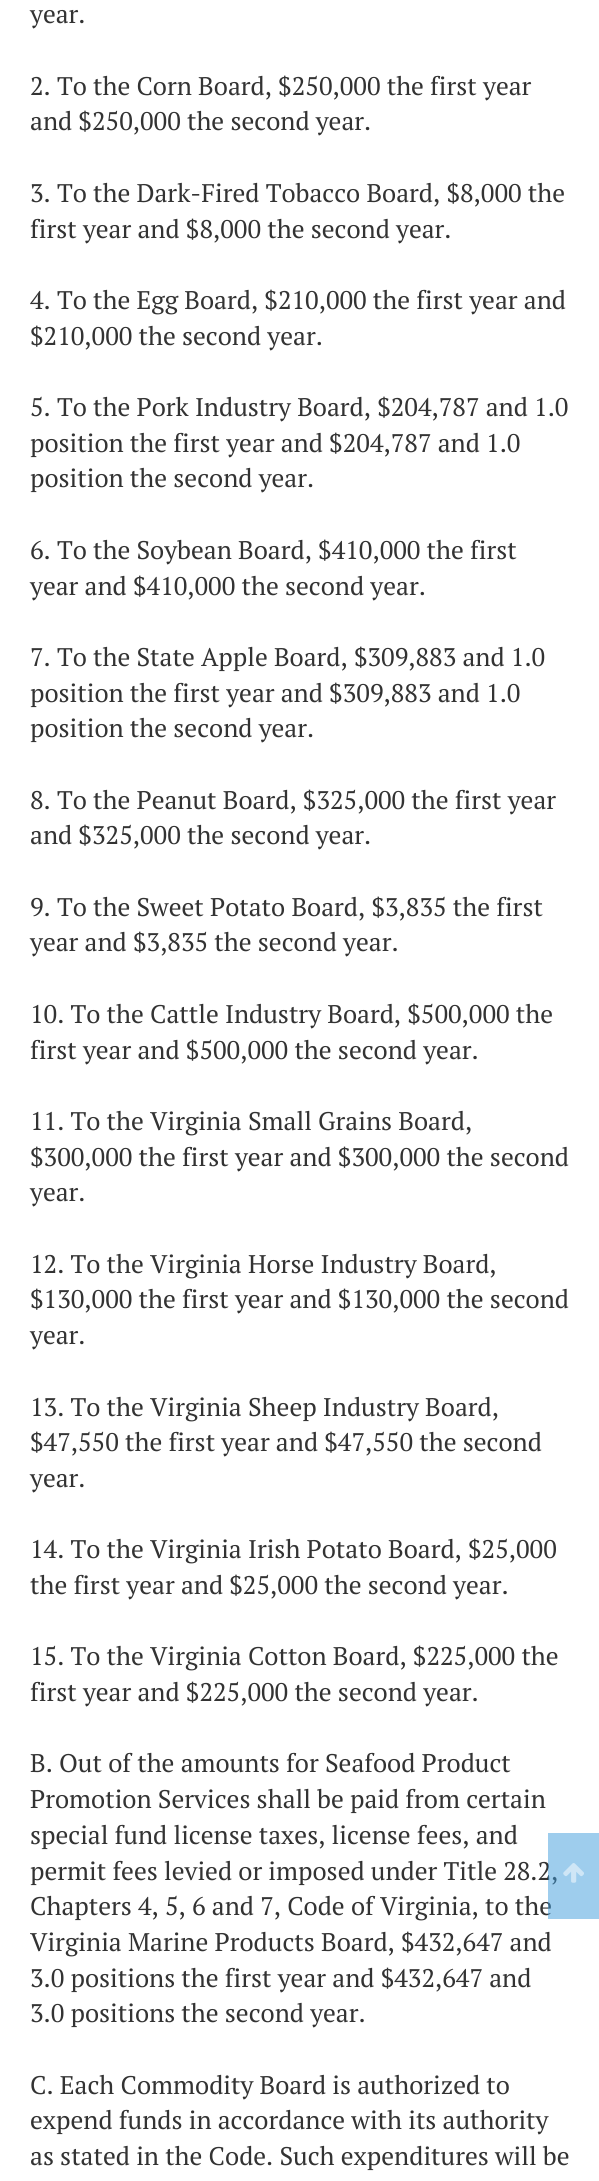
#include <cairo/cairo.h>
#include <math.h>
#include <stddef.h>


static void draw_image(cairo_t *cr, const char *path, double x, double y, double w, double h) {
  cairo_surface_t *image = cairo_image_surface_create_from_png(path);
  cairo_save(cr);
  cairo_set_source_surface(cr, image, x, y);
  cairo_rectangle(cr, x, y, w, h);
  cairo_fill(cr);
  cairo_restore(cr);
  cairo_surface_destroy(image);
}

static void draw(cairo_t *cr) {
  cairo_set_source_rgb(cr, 1, 1, 1);
  cairo_paint(cr);
  cairo_select_font_face(cr, "PT Serif", CAIRO_FONT_SLANT_NORMAL, CAIRO_FONT_WEIGHT_NORMAL);
  cairo_set_font_size(cr, 25.5);
  cairo_set_source_rgb(cr, 51 / 255.0, 51 / 255.0, 51 / 255.0);
  cairo_move_to(cr, 30, 23);
  cairo_show_text(cr, "year.");
  cairo_move_to(cr, 30, 95);
  cairo_show_text(cr, "2. To the Corn Board, $250,000 the first year");
  cairo_move_to(cr, 30, 130);
  cairo_show_text(cr, "and $250,000 the second year.");
  cairo_move_to(cr, 30, 202);
  cairo_show_text(cr, "3. To the Dark-Fired Tobacco Board, $8,000 the");
  cairo_move_to(cr, 30, 238);
  cairo_show_text(cr, "first year and $8,000 the second year.");
  cairo_move_to(cr, 30, 309);
  cairo_show_text(cr, "4. To the Egg Board, $210,000 the first year and");
  cairo_move_to(cr, 30, 345);
  cairo_show_text(cr, "$210,000 the second year.");
  cairo_move_to(cr, 30, 416);
  cairo_show_text(cr, "5. To the Pork Industry Board, $204,787 and 1.0");
  cairo_move_to(cr, 30, 452);
  cairo_show_text(cr, "position the first year and $204,787 and 1.0");
  cairo_move_to(cr, 30, 487);
  cairo_show_text(cr, "position the second year.");
  cairo_move_to(cr, 30, 559);
  cairo_show_text(cr, "6. To the Soybean Board, $410,000 the first");
  cairo_move_to(cr, 30, 595);
  cairo_show_text(cr, "year and $410,000 the second year.");
  cairo_move_to(cr, 30, 666);
  cairo_show_text(cr, "7. To the State Apple Board, $309,883 and 1.0");
  cairo_move_to(cr, 30, 702);
  cairo_show_text(cr, "position the first year and $309,883 and 1.0");
  cairo_move_to(cr, 30, 737);
  cairo_show_text(cr, "position the second year.");
  cairo_move_to(cr, 30, 809);
  cairo_show_text(cr, "8. To the Peanut Board, $325,000 the first year");
  cairo_move_to(cr, 30, 844);
  cairo_show_text(cr, "and $325,000 the second year.");
  cairo_move_to(cr, 30, 916);
  cairo_show_text(cr, "9. To the Sweet Potato Board, $3,835 the first");
  cairo_move_to(cr, 30, 951);
  cairo_show_text(cr, "year and $3,835 the second year.");
  cairo_move_to(cr, 30, 1023);
  cairo_show_text(cr, "10. To the Cattle Industry Board, $500,000 the");
  cairo_move_to(cr, 30, 1059);
  cairo_show_text(cr, "first year and $500,000 the second year.");
  cairo_move_to(cr, 30, 1130);
  cairo_show_text(cr, "11. To the Virginia Small Grains Board,");
  cairo_move_to(cr, 30, 1166);
  cairo_show_text(cr, "$300,000 the first year and $300,000 the second");
  cairo_move_to(cr, 30, 1201);
  cairo_show_text(cr, "year.");
  cairo_move_to(cr, 30, 1273);
  cairo_show_text(cr, "12. To the Virginia Horse Industry Board,");
  cairo_move_to(cr, 30, 1308);
  cairo_show_text(cr, "$130,000 the first year and $130,000 the second");
  cairo_move_to(cr, 30, 1344);
  cairo_show_text(cr, "year.");
  cairo_move_to(cr, 30, 1416);
  cairo_show_text(cr, "13. To the Virginia Sheep Industry Board,");
  cairo_move_to(cr, 30, 1451);
  cairo_show_text(cr, "$47,550 the first year and $47,550 the second");
  cairo_move_to(cr, 30, 1487);
  cairo_show_text(cr, "year.");
  cairo_move_to(cr, 30, 1558);
  cairo_show_text(cr, "14. To the Virginia Irish Potato Board, $25,000");
  cairo_move_to(cr, 30, 1594);
  cairo_show_text(cr, "the first year and $25,000 the second year.");
  cairo_move_to(cr, 30, 1665);
  cairo_show_text(cr, "15. To the Virginia Cotton Board, $225,000 the");
  cairo_move_to(cr, 30, 1701);
  cairo_show_text(cr, "first year and $225,000 the second year.");
  cairo_move_to(cr, 30, 1772);
  cairo_show_text(cr, "B. Out of the amounts for Seafood Product");
  cairo_move_to(cr, 30, 1808);
  cairo_show_text(cr, "Promotion Services shall be paid from certain");
  cairo_move_to(cr, 30, 1844);
  cairo_show_text(cr, "special fund license taxes, license fees, and");
  cairo_move_to(cr, 30, 1880);
  cairo_show_text(cr, "permit fees levied or imposed under Title 28.2,");
  cairo_move_to(cr, 30, 1915);
  cairo_show_text(cr, "Chapters 4, 5, 6 and 7, Code of Virginia, to the");
  cairo_move_to(cr, 30, 1951);
  cairo_show_text(cr, "Virginia Marine Products Board, $432,647 and");
  cairo_move_to(cr, 30, 1987);
  cairo_show_text(cr, "3.0 positions the first year and $432,647 and");
  cairo_move_to(cr, 30, 2022);
  cairo_show_text(cr, "3.0 positions the second year.");
  cairo_move_to(cr, 30, 2094);
  cairo_show_text(cr, "C. Each Commodity Board is authorized to");
  cairo_move_to(cr, 30, 2129);
  cairo_show_text(cr, "expend funds in accordance with its authority");
  cairo_move_to(cr, 30, 2165);
  cairo_show_text(cr, "as stated in the Code. Such expenditures will be");
  cairo_set_source_rgba(cr, 62 / 255.0, 157 / 255.0, 221 / 255.0, 0.5);
  cairo_rectangle(cr, 548, 1833, 51, 86);
  cairo_fill(cr);
  draw_image(cr, "images/1.png", 563, 1863, 21, 20);
}

int main(void) {
  cairo_surface_t *surface = cairo_image_surface_create(CAIRO_FORMAT_RGB24, 599, 2181);
  cairo_t *cr = cairo_create(surface);
  cairo_font_options_t *options = cairo_font_options_create();
  cairo_font_options_set_hint_metrics(options, CAIRO_HINT_METRICS_OFF);
  cairo_font_options_set_hint_style(options, CAIRO_HINT_STYLE_NONE);
  cairo_set_font_options(cr, options);
  cairo_set_miter_limit(cr, 4);
  draw(cr);
  cairo_surface_write_to_png(surface, "out.png");
  cairo_font_options_destroy(options);
  cairo_destroy(cr);
  cairo_surface_destroy(surface);
  return 0;
}
